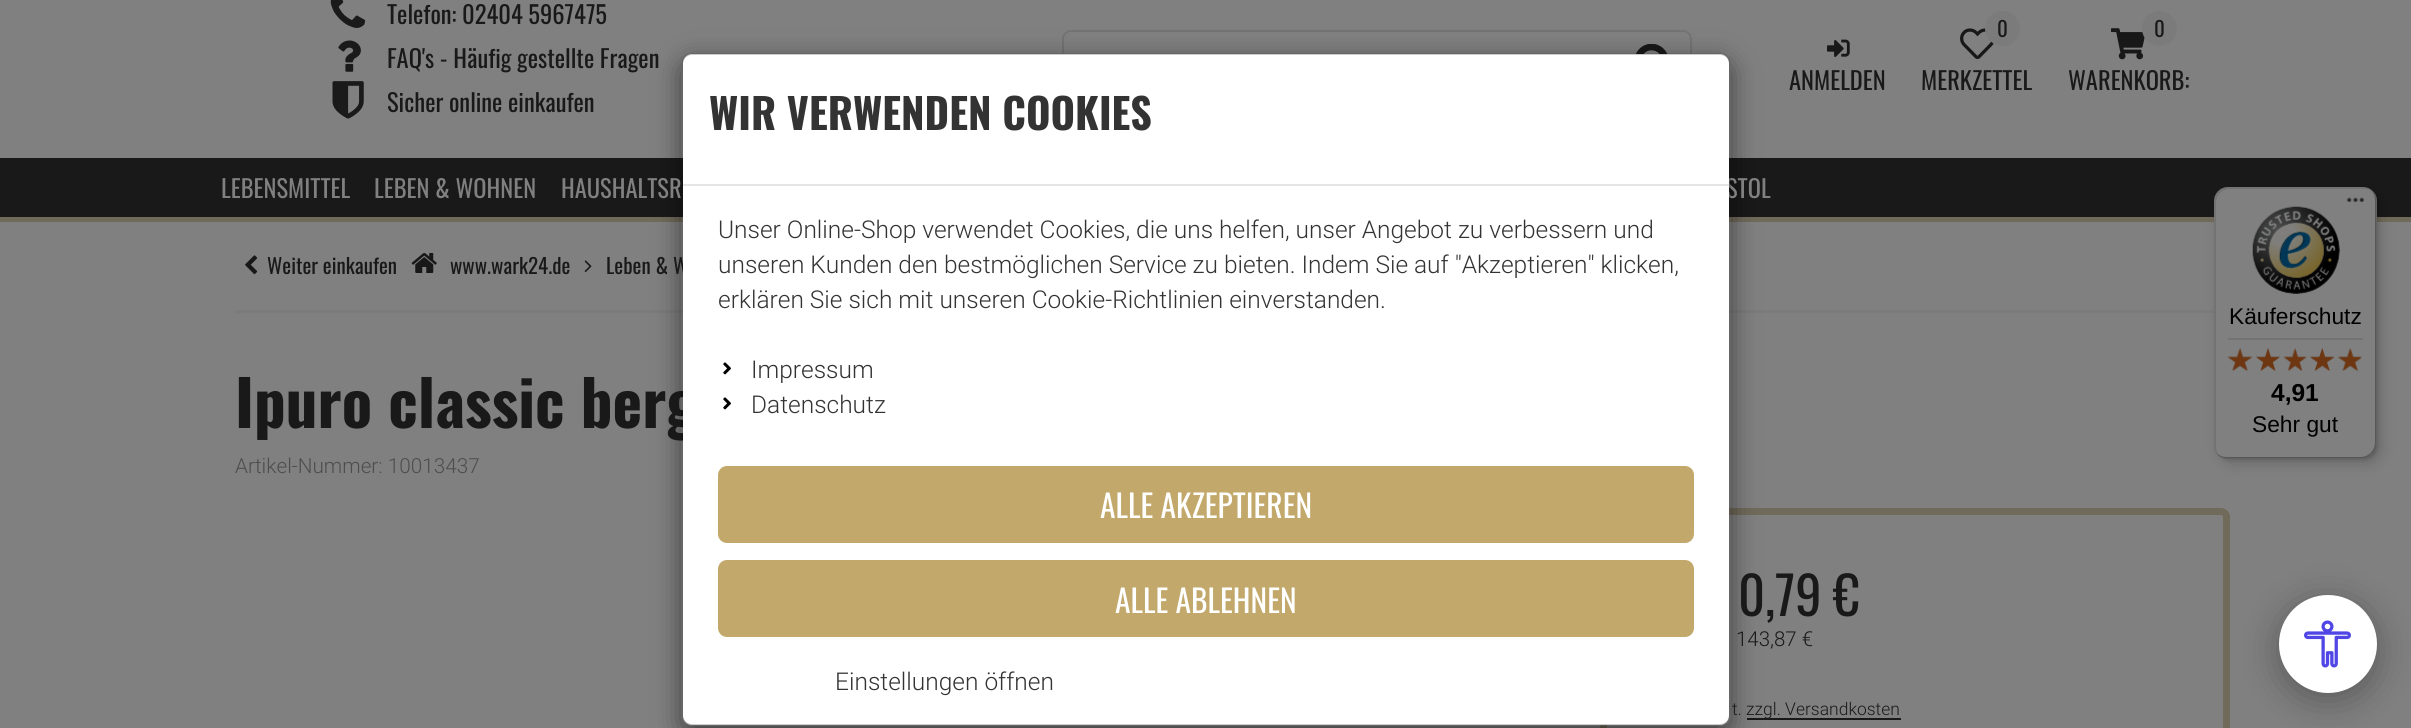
#include <cairo/cairo.h>
#include <math.h>
#include <stddef.h>


static void rounded_rect(cairo_t *cr, double x, double y, double w, double h, double r) {
  cairo_new_sub_path(cr);
  cairo_arc(cr, x + w - r, y + h - r, r, 0, M_PI / 2);
  cairo_arc(cr, x + r, y + h - r, r, M_PI / 2, M_PI);
  cairo_arc(cr, x + r, y + r, r, M_PI, 1.5 * M_PI);
  cairo_arc(cr, x + w - r, y + r, r, 1.5 * M_PI, 2 * M_PI);
  cairo_close_path(cr);
}

static void draw_shadow(cairo_t *cr, double x, double y, double w, double h, double r, double blur, double alpha) {
  cairo_push_group_with_content(cr, CAIRO_CONTENT_ALPHA);
  cairo_set_operator(cr, CAIRO_OPERATOR_SOURCE);
  for (int i = 15; i >= -15 && fmin(w, h) + blur * i / 3 > 0; i -= 2) {
    double e = blur * i / 6;
    cairo_set_source_rgba(cr, 0, 0, 0, alpha * erfc((i - 1) / 8.5) / 2);
    rounded_rect(cr, x - e, y - e, w + 2 * e, h + 2 * e, fmax(0, fmin(r + e + blur * .6, fmin(w, h) / 2 + e)));
    cairo_fill(cr);
  }
  cairo_pattern_t *soft = cairo_pop_group(cr);
  cairo_mask(cr, soft);
  cairo_pattern_destroy(soft);
}

static void draw_image(cairo_t *cr, const char *path, double x, double y, double w, double h) {
  cairo_surface_t *image = cairo_image_surface_create_from_png(path);
  cairo_save(cr);
  cairo_set_source_surface(cr, image, x, y);
  cairo_rectangle(cr, x, y, w, h);
  cairo_fill(cr);
  cairo_restore(cr);
  cairo_surface_destroy(image);
}

static void draw(cairo_t *cr) {
  cairo_set_source_rgb(cr, 128 / 255.0, 128 / 255.0, 128 / 255.0);
  cairo_paint(cr);
  draw_image(cr, "images/1.png", 330, 0, 36, 28);
  draw_image(cr, "images/2.png", 338, 40, 23, 32);
  draw_image(cr, "images/3.png", 332, 81, 32, 38);
  rounded_rect(cr, 1063, 31, 628, 68, 8);
  cairo_set_source_rgb(cr, 115 / 255.0, 115 / 255.0, 115 / 255.0);
  cairo_stroke(cr);
  draw_image(cr, "images/4.png", 1636, 44, 32, 10);
  draw_image(cr, "images/5.png", 1827, 39, 23, 18);
  draw_image(cr, "images/6.png", 1960, 28, 34, 32);
  cairo_set_source_rgb(cr, 123 / 255.0, 123 / 255.0, 123 / 255.0);
  cairo_arc(cr, 2002.5, 28.5, 17.5, 0, 2 * M_PI);
  cairo_fill(cr);
  draw_image(cr, "images/7.png", 2111, 28, 34, 32);
  cairo_arc(cr, 2159.5, 28.5, 17.5, 0, 2 * M_PI);
  cairo_fill(cr);
  cairo_set_source_rgb(cr, 25 / 255.0, 25 / 255.0, 25 / 255.0);
  cairo_rectangle(cr, 0, 158, 2411, 59);
  cairo_fill(cr);
  cairo_set_source_rgb(cr, 112 / 255.0, 106 / 255.0, 90 / 255.0);
  cairo_rectangle(cr, 0, 217, 2411, 5);
  cairo_fill(cr);
  cairo_set_source_rgb(cr, 123 / 255.0, 123 / 255.0, 123 / 255.0);
  cairo_rectangle(cr, 235, 310, 1979, 4);
  cairo_fill(cr);
  cairo_set_source_rgb(cr, 128 / 255.0, 128 / 255.0, 128 / 255.0);
  rounded_rect(cr, 235, 313, 1995, 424, 9);
  cairo_fill(cr);
  rounded_rect(cr, 1603.5, 511.5, 623, 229, 5.5);
  cairo_set_source_rgb(cr, 112 / 255.0, 106 / 255.0, 90 / 255.0);
  cairo_set_line_width(cr, 7);
  cairo_stroke(cr);
  cairo_set_source_rgb(cr, 25 / 255.0, 25 / 255.0, 25 / 255.0);
  cairo_rectangle(cr, 1747, 718, 154, 2);
  cairo_fill(cr);
  cairo_save(cr);
  cairo_set_fill_rule(cr, CAIRO_FILL_RULE_EVEN_ODD);
  cairo_new_path(cr);
  cairo_move_to(cr, 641, 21);
  cairo_line_to(cr, 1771, 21);
  cairo_line_to(cr, 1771, 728);
  cairo_line_to(cr, 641, 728);
  cairo_close_path(cr);
  cairo_move_to(cr, 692, 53);
  cairo_line_to(cr, 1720, 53);
  cairo_curve_to(cr, 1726, 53, 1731, 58, 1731, 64);
  cairo_line_to(cr, 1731, 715);
  cairo_curve_to(cr, 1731, 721, 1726, 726, 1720, 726);
  cairo_line_to(cr, 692, 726);
  cairo_curve_to(cr, 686, 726, 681, 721, 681, 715);
  cairo_line_to(cr, 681, 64);
  cairo_curve_to(cr, 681, 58, 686, 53, 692, 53);
  cairo_close_path(cr);
  cairo_clip(cr);
  cairo_set_source_rgb(cr, 0, 0, 0);
  draw_shadow(cr, 681, 61, 1050, 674, 11, 13, 0.5);
  cairo_restore(cr);
  draw_image(cr, "images/9.png", 245, 255, 13, 20);
  draw_image(cr, "images/10.png", 411, 253, 26, 20);
  draw_image(cr, "images/11.png", 584, 260, 8, 12);
  cairo_set_source_rgb(cr, 0, 0, 0);
  draw_shadow(cr, 2219, 193, 163, 271, 14, 7, 0.15);
  draw_shadow(cr, 2216, 189, 162, 271, 14, 2, 0.15);
  cairo_set_source_rgb(cr, 128 / 255.0, 128 / 255.0, 128 / 255.0);
  rounded_rect(cr, 2214, 187, 163, 272, 14);
  cairo_fill(cr);
  cairo_set_source_rgba(cr, 0, 0, 0, 0.1);
  cairo_new_path(cr);
  cairo_move_to(cr, 2230, 189);
  cairo_line_to(cr, 2364, 189);
  cairo_curve_to(cr, 2369, 189, 2373, 191, 2376, 195);
  cairo_curve_to(cr, 2373, 190, 2369, 187, 2363, 187);
  cairo_line_to(cr, 2228, 187);
  cairo_curve_to(cr, 2220, 187, 2214, 193, 2214, 201);
  cairo_line_to(cr, 2214, 445);
  cairo_curve_to(cr, 2214, 451, 2217, 455, 2222, 458);
  cairo_curve_to(cr, 2218, 455, 2216, 451, 2216, 446);
  cairo_line_to(cr, 2216, 203);
  cairo_curve_to(cr, 2216, 195, 2222, 189, 2230, 189);
  cairo_close_path(cr);
  cairo_fill(cr);
  cairo_set_source_rgba(cr, 0, 0, 0, 0.2);
  cairo_new_path(cr);
  cairo_move_to(cr, 2217, 453);
  cairo_curve_to(cr, 2219, 457, 2223, 459, 2228, 459);
  cairo_line_to(cr, 2363, 459);
  cairo_curve_to(cr, 2371, 459, 2377, 453, 2377, 445);
  cairo_line_to(cr, 2377, 201);
  cairo_curve_to(cr, 2377, 195, 2373, 190, 2368, 188);
  cairo_curve_to(cr, 2372, 190, 2375, 195, 2375, 200);
  cairo_line_to(cr, 2375, 443);
  cairo_curve_to(cr, 2375, 450, 2368, 457, 2361, 457);
  cairo_line_to(cr, 2226, 457);
  cairo_curve_to(cr, 2222, 457, 2219, 456, 2217, 453);
  cairo_close_path(cr);
  cairo_fill(cr);
  cairo_set_source_rgba(cr, 25 / 255.0, 25 / 255.0, 25 / 255.0, 0.2);
  cairo_new_path(cr);
  cairo_move_to(cr, 2215, 451);
  cairo_curve_to(cr, 2218, 456, 2222, 459, 2228, 459);
  cairo_line_to(cr, 2363, 459);
  cairo_curve_to(cr, 2371, 459, 2377, 453, 2377, 445);
  cairo_line_to(cr, 2377, 201);
  cairo_curve_to(cr, 2377, 195, 2374, 191, 2369, 188);
  cairo_curve_to(cr, 2373, 191, 2375, 195, 2375, 200);
  cairo_line_to(cr, 2375, 443);
  cairo_curve_to(cr, 2375, 451, 2369, 457, 2361, 457);
  cairo_line_to(cr, 2227, 457);
  cairo_curve_to(cr, 2222, 457, 2218, 455, 2215, 451);
  cairo_close_path(cr);
  cairo_fill(cr);
  cairo_set_source_rgba(cr, 128 / 255.0, 128 / 255.0, 128 / 255.0, 0.3);
  cairo_new_path(cr);
  cairo_move_to(cr, 2217, 453);
  cairo_curve_to(cr, 2219, 457, 2223, 459, 2228, 459);
  cairo_line_to(cr, 2363, 459);
  cairo_curve_to(cr, 2371, 459, 2377, 453, 2377, 445);
  cairo_line_to(cr, 2377, 201);
  cairo_curve_to(cr, 2377, 196, 2374, 191, 2370, 189);
  cairo_curve_to(cr, 2373, 191, 2376, 196, 2376, 200);
  cairo_line_to(cr, 2376, 444);
  cairo_curve_to(cr, 2376, 451, 2369, 458, 2362, 458);
  cairo_line_to(cr, 2227, 458);
  cairo_curve_to(cr, 2223, 458, 2219, 456, 2217, 453);
  cairo_close_path(cr);
  cairo_fill(cr);
  draw_image(cr, "images/12.png", 2346, 197, 18, 5);
  draw_image(cr, "images/13.png", 2252, 206, 88, 88);
  cairo_set_source_rgb(cr, 115 / 255.0, 115 / 255.0, 115 / 255.0);
  cairo_rectangle(cr, 2228, 338, 135, 2);
  cairo_fill(cr);
  draw_image(cr, "images/14.png", 2227, 348, 25, 23);
  draw_image(cr, "images/15.png", 2256, 348, 24, 23);
  draw_image(cr, "images/16.png", 2284, 348, 23, 23);
  draw_image(cr, "images/17.png", 2310, 348, 24, 23);
  draw_image(cr, "images/18.png", 2338, 348, 24, 23);
  draw_image(cr, "images/19.png", 2227, 348, 25, 23);
  draw_image(cr, "images/20.png", 2256, 348, 24, 23);
  draw_image(cr, "images/21.png", 2283, 348, 24, 23);
  draw_image(cr, "images/22.png", 2310, 348, 24, 23);
  draw_image(cr, "images/23.png", 2338, 348, 23, 23);
  cairo_set_source_rgb(cr, 0, 0, 0);
  draw_shadow(cr, 2279, 602, 98, 98, 49, 17.5, 0.3);
  cairo_set_source_rgb(cr, 1, 1, 1);
  cairo_arc(cr, 2328, 644, 49, 0, 2 * M_PI);
  cairo_fill(cr);
  draw_image(cr, "images/24.png", 2304, 620, 47, 48);
  cairo_select_font_face(cr, "Oswald", CAIRO_FONT_SLANT_NORMAL, CAIRO_FONT_WEIGHT_NORMAL);
  cairo_set_font_size(cr, 24.5);
  cairo_set_source_rgb(cr, 25 / 255.0, 25 / 255.0, 25 / 255.0);
  cairo_move_to(cr, 387, 24);
  cairo_show_text(cr, "Telefon:");
  cairo_move_to(cr, 462, 24);
  cairo_show_text(cr, "02404 5967475");
  cairo_move_to(cr, 387, 68);
  cairo_show_text(cr, "FAQ's - Häufig gestellte Fragen");
  cairo_move_to(cr, 387, 112);
  cairo_show_text(cr, "Sicher online einkaufen");
  cairo_move_to(cr, 1789, 90);
  cairo_show_text(cr, "ANMELDEN");
  cairo_set_font_size(cr, 21);
  cairo_move_to(cr, 1997, 37);
  cairo_show_text(cr, "0");
  cairo_set_font_size(cr, 24.5);
  cairo_move_to(cr, 1921, 90);
  cairo_show_text(cr, "MERKZETTEL");
  cairo_set_font_size(cr, 21);
  cairo_move_to(cr, 2154, 37);
  cairo_show_text(cr, "0");
  cairo_set_font_size(cr, 24.5);
  cairo_move_to(cr, 2068, 90);
  cairo_show_text(cr, "WARENKORB:");
  cairo_set_source_rgb(cr, 128 / 255.0, 128 / 255.0, 128 / 255.0);
  cairo_move_to(cr, 221, 198);
  cairo_show_text(cr, "LEBENSMITTEL");
  cairo_move_to(cr, 374, 198);
  cairo_show_text(cr, "LEBEN & WOHNEN");
  cairo_move_to(cr, 561, 198);
  cairo_show_text(cr, "HAUSHALTSR");
  cairo_move_to(cr, 1726, 198);
  cairo_show_text(cr, "STOL");
  cairo_set_font_size(cr, 21);
  cairo_set_source_rgb(cr, 25 / 255.0, 25 / 255.0, 25 / 255.0);
  cairo_move_to(cr, 267, 274);
  cairo_show_text(cr, "Weiter einkaufen");
  cairo_move_to(cr, 450, 274);
  cairo_show_text(cr, "www.wark24.de");
  cairo_move_to(cr, 606, 274);
  cairo_show_text(cr, "Leben & W");
  cairo_select_font_face(cr, "Oswald", CAIRO_FONT_SLANT_NORMAL, CAIRO_FONT_WEIGHT_BOLD);
  cairo_set_font_size(cr, 63);
  cairo_move_to(cr, 235, 428);
  cairo_show_text(cr, "Ipuro classic berg");
  cairo_set_source_rgb(cr, 1, 1, 1);
  rounded_rect(cr, 683, 54, 1046, 671, 9);
  cairo_fill(cr);
  rounded_rect(cr, 682, 54, 1048, 671, 10);
  cairo_set_source_rgba(cr, 0, 0, 0, 0.2);
  cairo_set_line_width(cr, 2);
  cairo_stroke(cr);
  cairo_select_font_face(cr, "Roboto Light", CAIRO_FONT_SLANT_NORMAL, CAIRO_FONT_WEIGHT_NORMAL);
  cairo_set_font_size(cr, 24.5);
  cairo_set_source_rgb(cr, 51 / 255.0, 51 / 255.0, 51 / 255.0);
  cairo_move_to(cr, 835, 690);
  cairo_show_text(cr, "Einstellungen öffnen");
  cairo_set_source_rgb(cr, 194 / 255.0, 169 / 255.0, 107 / 255.0);
  rounded_rect(cr, 718, 560, 976, 77, 9);
  cairo_fill(cr);
  cairo_select_font_face(cr, "Oswald", CAIRO_FONT_SLANT_NORMAL, CAIRO_FONT_WEIGHT_NORMAL);
  cairo_set_font_size(cr, 31.5);
  cairo_set_source_rgb(cr, 1, 1, 1);
  cairo_move_to(cr, 1115, 613);
  cairo_show_text(cr, "ALLE ABLEHNEN");
  cairo_set_source_rgb(cr, 194 / 255.0, 169 / 255.0, 107 / 255.0);
  rounded_rect(cr, 718, 466, 976, 77, 9);
  cairo_fill(cr);
  cairo_set_source_rgb(cr, 1, 1, 1);
  cairo_move_to(cr, 1100, 518);
  cairo_show_text(cr, "ALLE AKZEPTIEREN");
  draw_image(cr, "images/8.png", 723, 397, 8, 13);
  draw_image(cr, "images/8.png", 723, 362, 8, 13);
  cairo_select_font_face(cr, "Roboto Light", CAIRO_FONT_SLANT_NORMAL, CAIRO_FONT_WEIGHT_NORMAL);
  cairo_set_font_size(cr, 24.5);
  cairo_set_source_rgb(cr, 51 / 255.0, 51 / 255.0, 51 / 255.0);
  cairo_move_to(cr, 751, 413);
  cairo_show_text(cr, "Datenschutz");
  cairo_move_to(cr, 751, 378);
  cairo_show_text(cr, "Impressum");
  cairo_move_to(cr, 718, 308);
  cairo_show_text(cr, "erklären Sie sich mit unseren Cookie-Richtlinien einverstanden.");
  cairo_move_to(cr, 718, 273);
  cairo_show_text(cr, "unseren Kunden den bestmöglichen Service zu bieten. Indem Sie auf \"Akzeptieren\" klicken,");
  cairo_move_to(cr, 718, 238);
  cairo_show_text(cr, "Unser Online-Shop verwendet Cookies, die uns helfen, unser Angebot zu verbessern und");
  cairo_select_font_face(cr, "Oswald", CAIRO_FONT_SLANT_NORMAL, CAIRO_FONT_WEIGHT_BOLD);
  cairo_set_font_size(cr, 42);
  cairo_move_to(cr, 709, 130);
  cairo_show_text(cr, "WIR VERWENDEN COOKIES");
  cairo_set_source_rgb(cr, 229 / 255.0, 229 / 255.0, 229 / 255.0);
  cairo_rectangle(cr, 683, 184, 1046, 2);
  cairo_fill(cr);
  cairo_select_font_face(cr, "Roboto Light", CAIRO_FONT_SLANT_NORMAL, CAIRO_FONT_WEIGHT_NORMAL);
  cairo_set_font_size(cr, 20.75);
  cairo_set_source_rgb(cr, 77 / 255.0, 77 / 255.0, 77 / 255.0);
  cairo_move_to(cr, 235, 473);
  cairo_show_text(cr, "Artikel-Nummer: 10013437");
  cairo_select_font_face(cr, "Oswald", CAIRO_FONT_SLANT_NORMAL, CAIRO_FONT_WEIGHT_NORMAL);
  cairo_set_font_size(cr, 52.5);
  cairo_set_source_rgb(cr, 25 / 255.0, 25 / 255.0, 25 / 255.0);
  cairo_move_to(cr, 1738, 616);
  cairo_show_text(cr, "0,79 €");
  cairo_select_font_face(cr, "Roboto Light", CAIRO_FONT_SLANT_NORMAL, CAIRO_FONT_WEIGHT_NORMAL);
  cairo_set_font_size(cr, 20.5);
  cairo_move_to(cr, 1736, 646);
  cairo_show_text(cr, "143,87 €");
  cairo_set_font_size(cr, 17.5);
  cairo_move_to(cr, 1732, 715);
  cairo_show_text(cr, "t.");
  cairo_move_to(cr, 1746, 715);
  cairo_show_text(cr, "zzgl. Versandkosten");
  cairo_select_font_face(cr, "Liberation Sans", CAIRO_FONT_SLANT_NORMAL, CAIRO_FONT_WEIGHT_NORMAL);
  cairo_set_font_size(cr, 22.75);
  cairo_set_source_rgb(cr, 0, 0, 0);
  cairo_move_to(cr, 2229, 324);
  cairo_show_text(cr, "Käuferschutz");
  cairo_select_font_face(cr, "Liberation Sans", CAIRO_FONT_SLANT_NORMAL, CAIRO_FONT_WEIGHT_BOLD);
  cairo_set_font_size(cr, 24.5);
  cairo_move_to(cr, 2271, 401);
  cairo_show_text(cr, "4,91");
  cairo_select_font_face(cr, "Liberation Sans", CAIRO_FONT_SLANT_NORMAL, CAIRO_FONT_WEIGHT_NORMAL);
  cairo_set_font_size(cr, 22.75);
  cairo_move_to(cr, 2252, 432);
  cairo_show_text(cr, "Sehr gut");
}

int main(void) {
  cairo_surface_t *surface = cairo_image_surface_create(CAIRO_FORMAT_RGB24, 2411, 728);
  cairo_t *cr = cairo_create(surface);
  cairo_font_options_t *options = cairo_font_options_create();
  cairo_font_options_set_hint_metrics(options, CAIRO_HINT_METRICS_OFF);
  cairo_font_options_set_hint_style(options, CAIRO_HINT_STYLE_NONE);
  cairo_set_font_options(cr, options);
  cairo_set_miter_limit(cr, 4);
  draw(cr);
  cairo_surface_write_to_png(surface, "out.png");
  cairo_font_options_destroy(options);
  cairo_destroy(cr);
  cairo_surface_destroy(surface);
  return 0;
}
